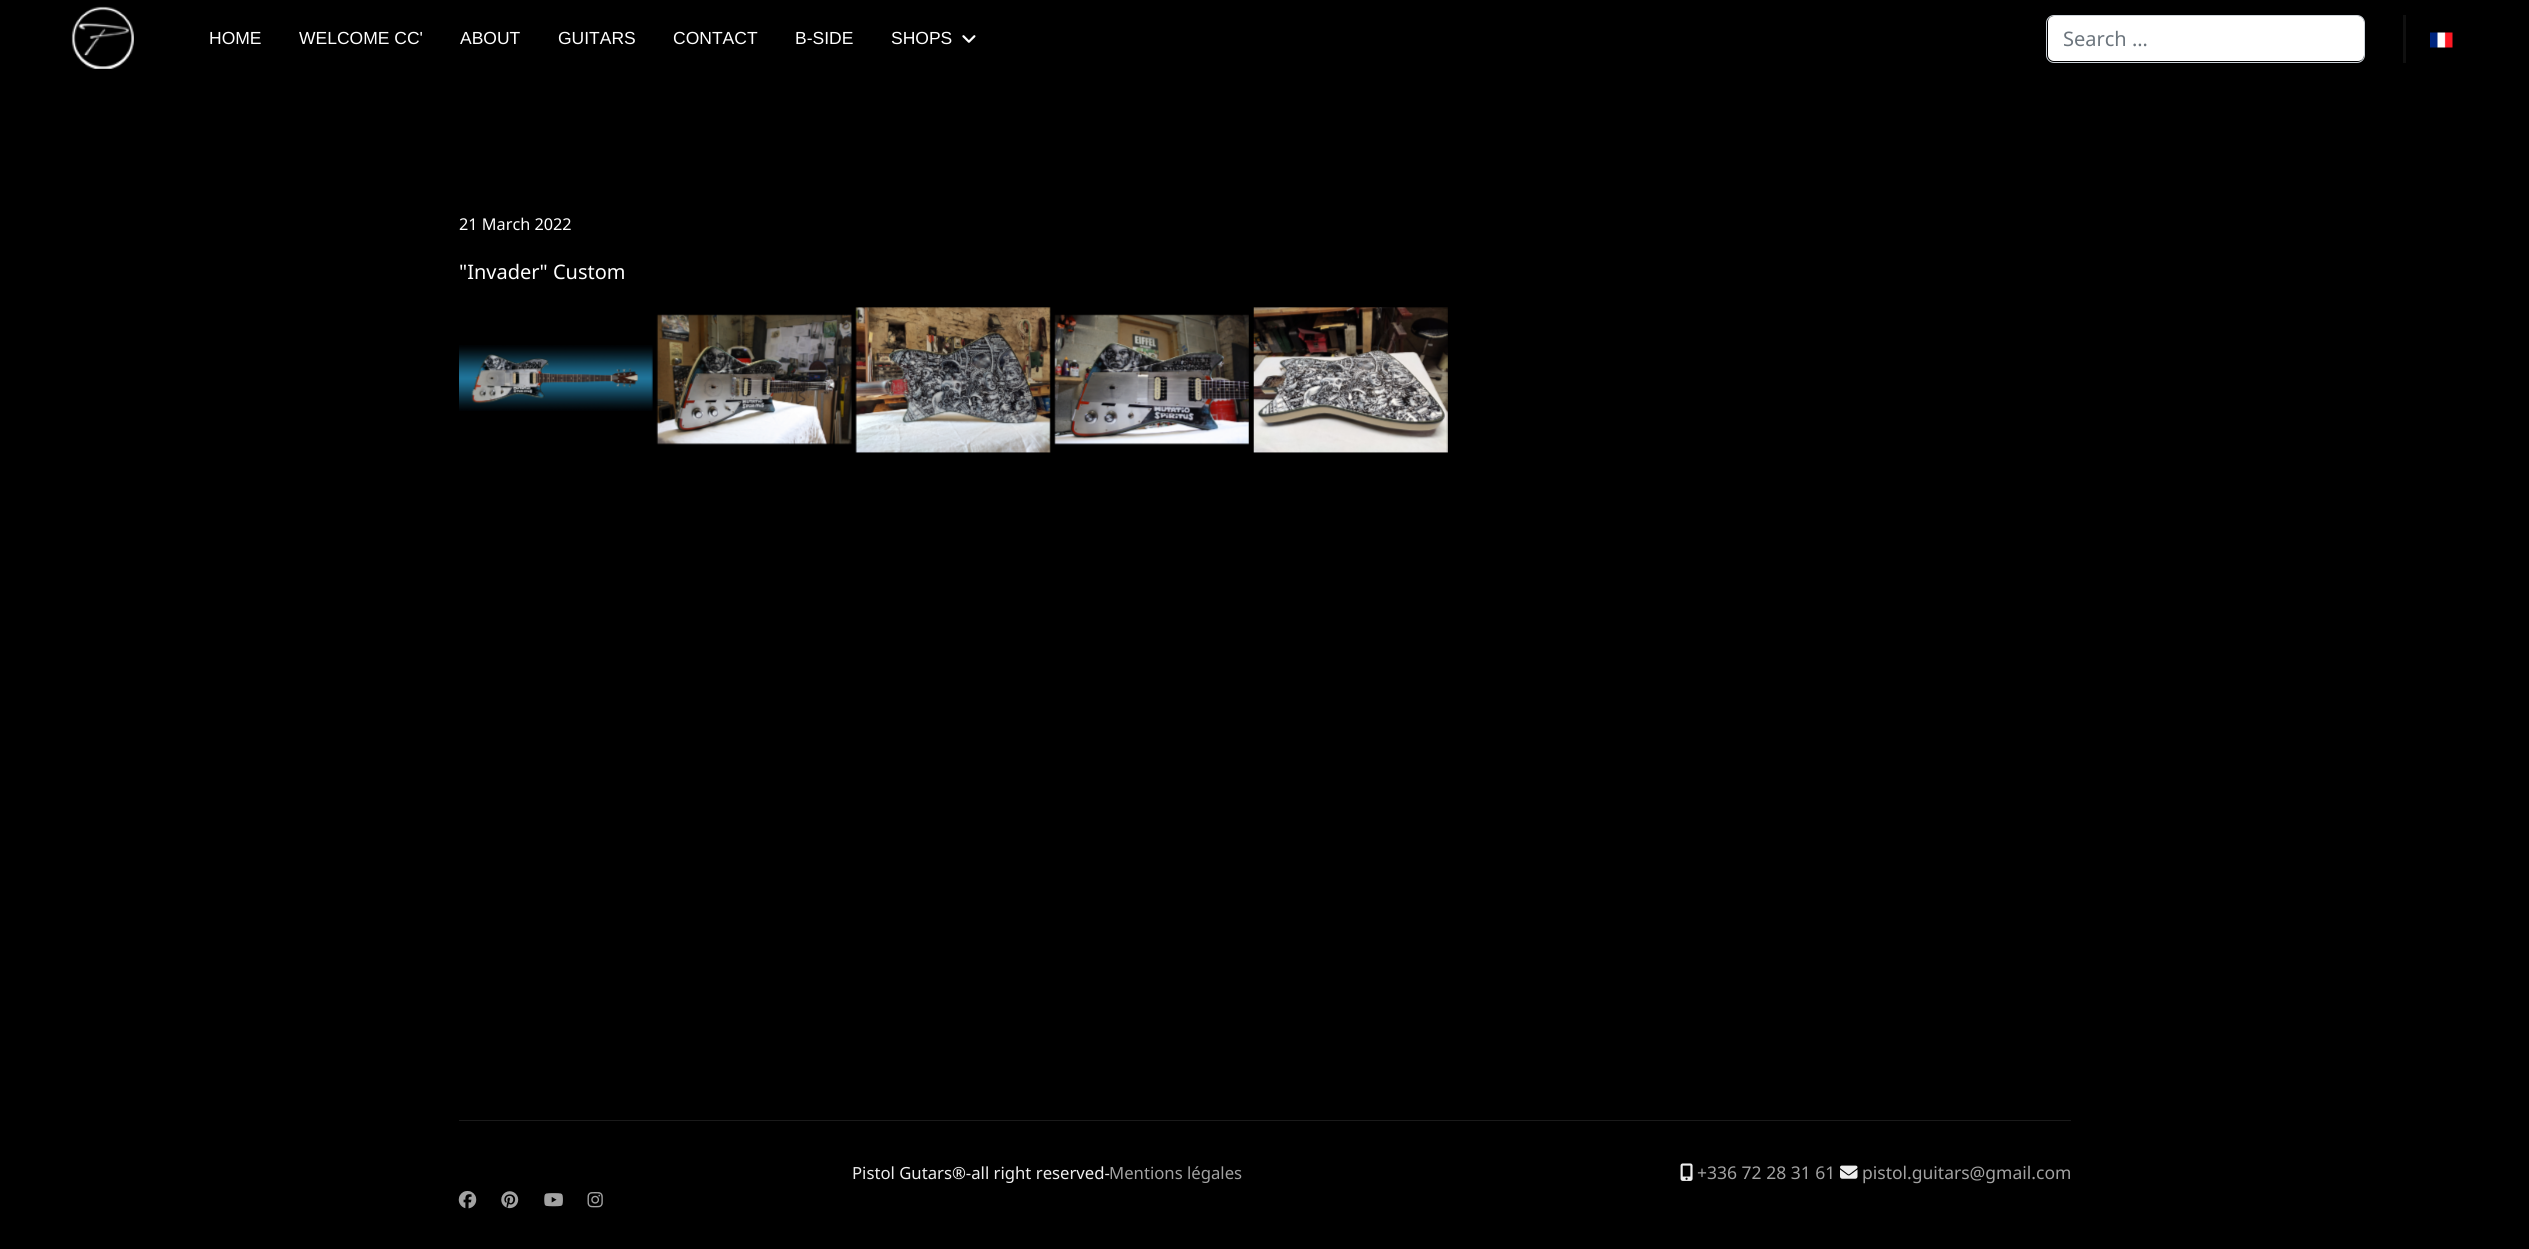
#include <cairo/cairo.h>
#include <math.h>
#include <stddef.h>


static void rounded_rect(cairo_t *cr, double x, double y, double w, double h, double r) {
  cairo_new_sub_path(cr);
  cairo_arc(cr, x + w - r, y + h - r, r, 0, M_PI / 2);
  cairo_arc(cr, x + r, y + h - r, r, M_PI / 2, M_PI);
  cairo_arc(cr, x + r, y + r, r, M_PI, 1.5 * M_PI);
  cairo_arc(cr, x + w - r, y + r, r, 1.5 * M_PI, 2 * M_PI);
  cairo_close_path(cr);
}

static void draw_image(cairo_t *cr, const char *path, double x, double y, double w, double h) {
  cairo_surface_t *image = cairo_image_surface_create_from_png(path);
  cairo_save(cr);
  cairo_set_source_surface(cr, image, x, y);
  cairo_rectangle(cr, x, y, w, h);
  cairo_fill(cr);
  cairo_restore(cr);
  cairo_surface_destroy(image);
}

static void draw(cairo_t *cr) {
  cairo_set_source_rgb(cr, 0, 0, 0);
  cairo_paint(cr);
  draw_image(cr, "images/1.png", 71, 6, 63, 63);
  draw_image(cr, "images/2.png", 962, 35, 14, 8);
  cairo_set_source_rgb(cr, 16 / 255.0, 16 / 255.0, 16 / 255.0);
  cairo_rectangle(cr, 2403, 15, 3, 48);
  cairo_fill(cr);
  cairo_set_source_rgb(cr, 1, 1, 1);
  rounded_rect(cr, 2048, 16, 316, 45, 6);
  cairo_fill(cr);
  rounded_rect(cr, 2046.5, 15.5, 318, 47, 7.5);
  cairo_set_source_rgb(cr, 206 / 255.0, 212 / 255.0, 218 / 255.0);
  cairo_set_line_width(cr, 1);
  cairo_stroke(cr);
  draw_image(cr, "images/3.png", 2430, 32, 23, 16);
  draw_image(cr, "images/4.png", 459, 345, 194, 66);
  draw_image(cr, "images/5.png", 656, 314, 196, 131);
  draw_image(cr, "images/6.png", 855, 307, 196, 146);
  draw_image(cr, "images/7.png", 1054, 314, 195, 131);
  draw_image(cr, "images/8.png", 1253, 307, 195, 146);
  cairo_set_source_rgb(cr, 26 / 255.0, 26 / 255.0, 26 / 255.0);
  cairo_rectangle(cr, 459, 1120, 1612, 1);
  cairo_fill(cr);
  draw_image(cr, "images/9.png", 458, 1190, 19, 19);
  draw_image(cr, "images/10.png", 501, 1191, 18, 18);
  draw_image(cr, "images/11.png", 544, 1193, 19, 14);
  draw_image(cr, "images/12.png", 587, 1192, 16, 16);
  draw_image(cr, "images/13.png", 1680, 1163, 13, 18);
  draw_image(cr, "images/14.png", 1840, 1165, 18, 14);
  cairo_select_font_face(cr, "Liberation Sans", CAIRO_FONT_SLANT_NORMAL, CAIRO_FONT_WEIGHT_NORMAL);
  cairo_set_font_size(cr, 17.5);
  cairo_set_source_rgb(cr, 1, 1, 1);
  cairo_move_to(cr, 209, 44);
  cairo_show_text(cr, "HOME");
  cairo_move_to(cr, 299, 44);
  cairo_show_text(cr, "WELCOME CC'");
  cairo_move_to(cr, 460, 44);
  cairo_show_text(cr, "ABOUT");
  cairo_move_to(cr, 558, 44);
  cairo_show_text(cr, "GUITARS");
  cairo_move_to(cr, 673, 44);
  cairo_show_text(cr, "CONTACT");
  cairo_move_to(cr, 795, 44);
  cairo_show_text(cr, "B-SIDE");
  cairo_move_to(cr, 891, 44);
  cairo_show_text(cr, "SHOPS");
  cairo_select_font_face(cr, "Noto Sans", CAIRO_FONT_SLANT_NORMAL, CAIRO_FONT_WEIGHT_NORMAL);
  cairo_set_font_size(cr, 20);
  cairo_set_source_rgb(cr, 108 / 255.0, 117 / 255.0, 125 / 255.0);
  cairo_move_to(cr, 2063, 46);
  cairo_show_text(cr, "Search …");
  cairo_set_font_size(cr, 16.25);
  cairo_set_source_rgb(cr, 1, 1, 1);
  cairo_move_to(cr, 459, 230);
  cairo_show_text(cr, "21 March 2022");
  cairo_set_font_size(cr, 20);
  cairo_move_to(cr, 459, 279);
  cairo_show_text(cr, "\"Invader\" Custom");
  cairo_set_font_size(cr, 16.7);
  cairo_set_source_rgb(cr, 238 / 255.0, 238 / 255.0, 238 / 255.0);
  cairo_move_to(cr, 852, 1179);
  cairo_show_text(cr, "Pistol Gutars®-all right reserved-");
  cairo_set_source_rgb(cr, 162 / 255.0, 162 / 255.0, 162 / 255.0);
  cairo_move_to(cr, 1109, 1179);
  cairo_show_text(cr, "Mentions légales");
  cairo_set_font_size(cr, 17.5);
  cairo_move_to(cr, 1697, 1179);
  cairo_show_text(cr, "+336 72 28 31 61");
  cairo_move_to(cr, 1862, 1179);
  cairo_show_text(cr, "pistol.guitars@gmail.com");
}

int main(void) {
  cairo_surface_t *surface = cairo_image_surface_create(CAIRO_FORMAT_RGB24, 2529, 1249);
  cairo_t *cr = cairo_create(surface);
  cairo_font_options_t *options = cairo_font_options_create();
  cairo_font_options_set_hint_metrics(options, CAIRO_HINT_METRICS_OFF);
  cairo_font_options_set_hint_style(options, CAIRO_HINT_STYLE_NONE);
  cairo_set_font_options(cr, options);
  cairo_set_miter_limit(cr, 4);
  draw(cr);
  cairo_surface_write_to_png(surface, "out.png");
  cairo_font_options_destroy(options);
  cairo_destroy(cr);
  cairo_surface_destroy(surface);
  return 0;
}
